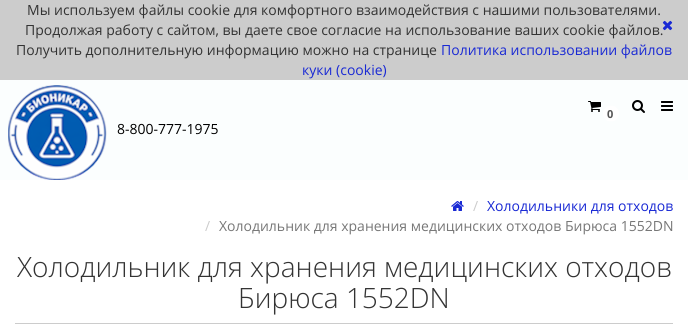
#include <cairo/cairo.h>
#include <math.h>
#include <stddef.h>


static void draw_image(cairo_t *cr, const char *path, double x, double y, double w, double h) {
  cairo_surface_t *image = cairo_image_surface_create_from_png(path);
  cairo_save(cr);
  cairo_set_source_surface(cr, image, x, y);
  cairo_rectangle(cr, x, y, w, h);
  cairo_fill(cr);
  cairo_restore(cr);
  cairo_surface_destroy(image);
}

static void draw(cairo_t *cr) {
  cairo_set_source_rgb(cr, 1, 1, 1);
  cairo_paint(cr);
  cairo_set_source_rgb(cr, 204 / 255.0, 204 / 255.0, 204 / 255.0);
  cairo_rectangle(cr, 0, 0, 688, 80);
  cairo_fill(cr);
  cairo_set_source_rgb(cr, 251 / 255.0, 254 / 255.0, 254 / 255.0);
  cairo_rectangle(cr, 0, 80, 688, 100);
  cairo_fill(cr);
  draw_image(cr, "images/2.png", 8, 85, 99, 95);
  draw_image(cr, "images/3.png", 632, 100, 13, 13);
  draw_image(cr, "images/4.png", 661, 101, 12, 10);
  draw_image(cr, "images/5.png", 588, 101, 13, 11);
  cairo_set_source_rgb(cr, 1, 1, 1);
  cairo_new_path(cr);
  cairo_move_to(cr, 619, 113.5);
  cairo_curve_to(cr, 619, 103, 603, 103, 603, 113.5);
  cairo_curve_to(cr, 603, 124, 619, 124, 619, 113.5);
  cairo_close_path(cr);
  cairo_fill(cr);
  draw_image(cr, "images/6.png", 451, 201, 13, 10);
  cairo_set_source_rgb(cr, 204 / 255.0, 204 / 255.0, 204 / 255.0);
  cairo_rectangle(cr, 15, 323, 658, 1);
  cairo_fill(cr);
  cairo_select_font_face(cr, "Open Sans", CAIRO_FONT_SLANT_NORMAL, CAIRO_FONT_WEIGHT_NORMAL);
  cairo_set_font_size(cr, 14);
  cairo_set_source_rgb(cr, 51 / 255.0, 51 / 255.0, 51 / 255.0);
  cairo_move_to(cr, 27, 15);
  cairo_show_text(cr, "Мы используем файлы cookie для комфортного взаимодействия с нашими пользователями.");
  cairo_move_to(cr, 25, 35);
  cairo_show_text(cr, "Продолжая работу с сайтом, вы даете свое согласие на использование ваших cookie файлов.");
  cairo_move_to(cr, 16, 55);
  cairo_show_text(cr, "Получить дополнительную информацию можно на странице");
  cairo_set_source_rgb(cr, 25 / 255.0, 41 / 255.0, 212 / 255.0);
  cairo_move_to(cr, 441, 55);
  cairo_show_text(cr, "Политика использовании файлов");
  cairo_move_to(cr, 302, 75);
  cairo_show_text(cr, "куки (cookie)");
  draw_image(cr, "images/1.png", 662, 20, 11, 11);
  cairo_select_font_face(cr, "Open Sans", CAIRO_FONT_SLANT_NORMAL, CAIRO_FONT_WEIGHT_BOLD);
  cairo_set_font_size(cr, 11);
  cairo_set_source_rgb(cr, 85 / 255.0, 85 / 255.0, 85 / 255.0);
  cairo_move_to(cr, 607, 118);
  cairo_show_text(cr, "0");
  cairo_select_font_face(cr, "Open Sans", CAIRO_FONT_SLANT_NORMAL, CAIRO_FONT_WEIGHT_NORMAL);
  cairo_set_font_size(cr, 14);
  cairo_set_source_rgb(cr, 0, 0, 0);
  cairo_move_to(cr, 117, 134);
  cairo_show_text(cr, "8-800-777-1975");
  cairo_set_source_rgb(cr, 204 / 255.0, 204 / 255.0, 204 / 255.0);
  cairo_move_to(cr, 473, 211);
  cairo_show_text(cr, "/");
  cairo_set_source_rgb(cr, 25 / 255.0, 41 / 255.0, 212 / 255.0);
  cairo_move_to(cr, 487, 211);
  cairo_show_text(cr, "Холодильники для отходов");
  cairo_set_source_rgb(cr, 204 / 255.0, 204 / 255.0, 204 / 255.0);
  cairo_move_to(cr, 205, 231);
  cairo_show_text(cr, "/");
  cairo_set_source_rgb(cr, 119 / 255.0, 119 / 255.0, 119 / 255.0);
  cairo_move_to(cr, 219, 231);
  cairo_show_text(cr, "Холодильник для хранения медицинских отходов Бирюса 1552DN");
  cairo_select_font_face(cr, "Open Sans Light", CAIRO_FONT_SLANT_NORMAL, CAIRO_FONT_WEIGHT_NORMAL);
  cairo_set_font_size(cr, 28);
  cairo_set_source_rgb(cr, 51 / 255.0, 51 / 255.0, 51 / 255.0);
  cairo_move_to(cr, 17, 277);
  cairo_show_text(cr, "Холодильник для хранения медицинских отходов");
  cairo_move_to(cr, 238, 308);
  cairo_show_text(cr, "Бирюса 1552DN");
}

int main(void) {
  cairo_surface_t *surface = cairo_image_surface_create(CAIRO_FORMAT_RGB24, 688, 332);
  cairo_t *cr = cairo_create(surface);
  cairo_font_options_t *options = cairo_font_options_create();
  cairo_font_options_set_hint_metrics(options, CAIRO_HINT_METRICS_OFF);
  cairo_font_options_set_hint_style(options, CAIRO_HINT_STYLE_NONE);
  cairo_set_font_options(cr, options);
  cairo_set_miter_limit(cr, 4);
  draw(cr);
  cairo_surface_write_to_png(surface, "out.png");
  cairo_font_options_destroy(options);
  cairo_destroy(cr);
  cairo_surface_destroy(surface);
  return 0;
}
